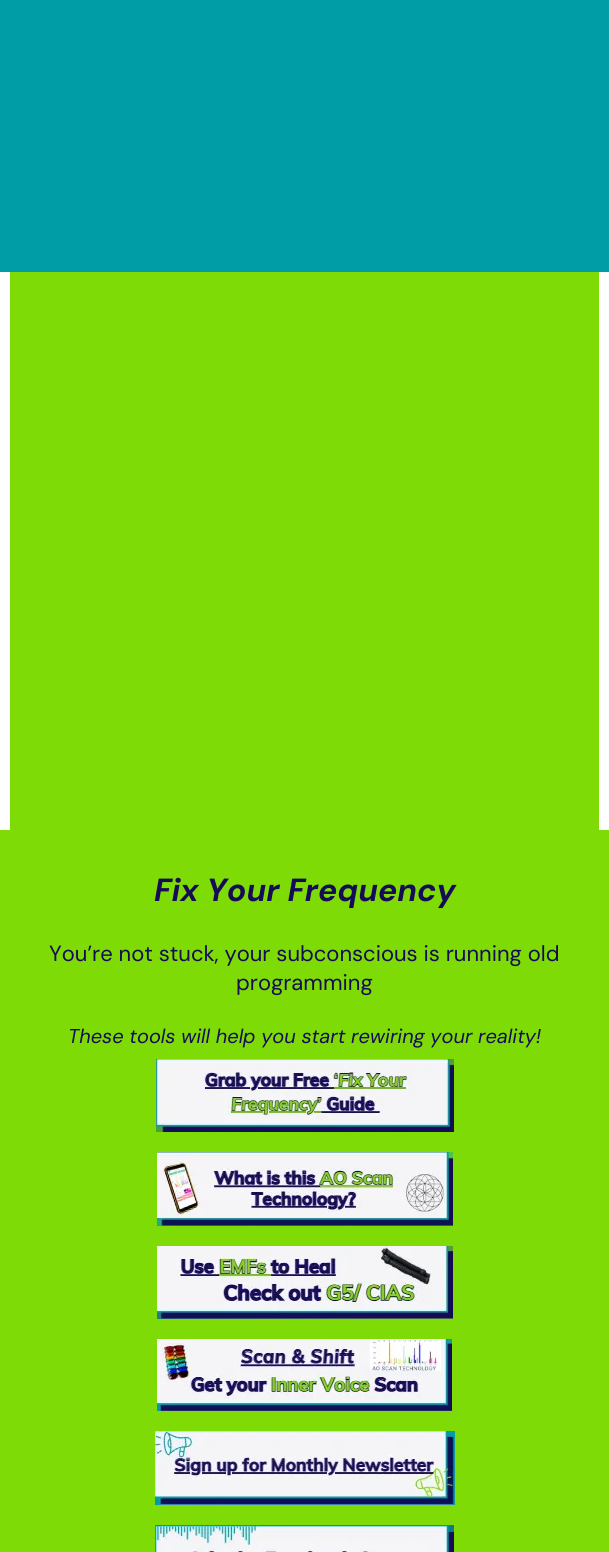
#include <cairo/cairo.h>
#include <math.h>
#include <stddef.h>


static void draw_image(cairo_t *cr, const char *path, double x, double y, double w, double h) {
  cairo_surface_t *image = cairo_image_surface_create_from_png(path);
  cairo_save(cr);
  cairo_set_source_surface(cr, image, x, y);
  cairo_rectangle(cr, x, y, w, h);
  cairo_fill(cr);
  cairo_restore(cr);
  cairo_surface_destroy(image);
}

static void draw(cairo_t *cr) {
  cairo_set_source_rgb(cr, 1, 1, 1);
  cairo_paint(cr);
  cairo_set_source_rgb(cr, 0, 157 / 255.0, 166 / 255.0);
  cairo_rectangle(cr, 0, 0, 609, 272);
  cairo_fill(cr);
  cairo_set_source_rgb(cr, 126 / 255.0, 219 / 255.0, 6 / 255.0);
  cairo_rectangle(cr, 10, 272, 589, 558);
  cairo_fill(cr);
  cairo_rectangle(cr, 0, 830, 609, 722);
  cairo_fill(cr);
  draw_image(cr, "images/1.png", 156, 1059, 298, 73);
  draw_image(cr, "images/2.png", 157, 1152, 296, 74);
  draw_image(cr, "images/3.png", 157, 1246, 296, 73);
  draw_image(cr, "images/4.png", 157, 1339, 295, 72);
  draw_image(cr, "images/5.png", 155, 1431, 300, 74);
  draw_image(cr, "images/6.png", 155, 1525, 299, 27);
  cairo_select_font_face(cr, "DM Sans", CAIRO_FONT_SLANT_ITALIC, CAIRO_FONT_WEIGHT_BOLD);
  cairo_set_font_size(cr, 32);
  cairo_set_source_rgb(cr, 22 / 255.0, 12 / 255.0, 86 / 255.0);
  cairo_move_to(cr, 154, 901);
  cairo_show_text(cr, "Fix Your Frequency");
  cairo_select_font_face(cr, "DM Sans", CAIRO_FONT_SLANT_NORMAL, CAIRO_FONT_WEIGHT_NORMAL);
  cairo_set_font_size(cr, 22);
  cairo_move_to(cr, 49, 961);
  cairo_show_text(cr, "You’re not stuck, your subconscious is running old");
  cairo_move_to(cr, 236, 990);
  cairo_show_text(cr, "programming");
  cairo_select_font_face(cr, "DM Sans", CAIRO_FONT_SLANT_ITALIC, CAIRO_FONT_WEIGHT_NORMAL);
  cairo_set_font_size(cr, 20);
  cairo_move_to(cr, 68, 1043);
  cairo_show_text(cr, "These tools will help you start rewiring your reality!");
}

int main(void) {
  cairo_surface_t *surface = cairo_image_surface_create(CAIRO_FORMAT_RGB24, 609, 1552);
  cairo_t *cr = cairo_create(surface);
  cairo_font_options_t *options = cairo_font_options_create();
  cairo_font_options_set_hint_metrics(options, CAIRO_HINT_METRICS_OFF);
  cairo_font_options_set_hint_style(options, CAIRO_HINT_STYLE_NONE);
  cairo_set_font_options(cr, options);
  cairo_set_miter_limit(cr, 4);
  draw(cr);
  cairo_surface_write_to_png(surface, "out.png");
  cairo_font_options_destroy(options);
  cairo_destroy(cr);
  cairo_surface_destroy(surface);
  return 0;
}
